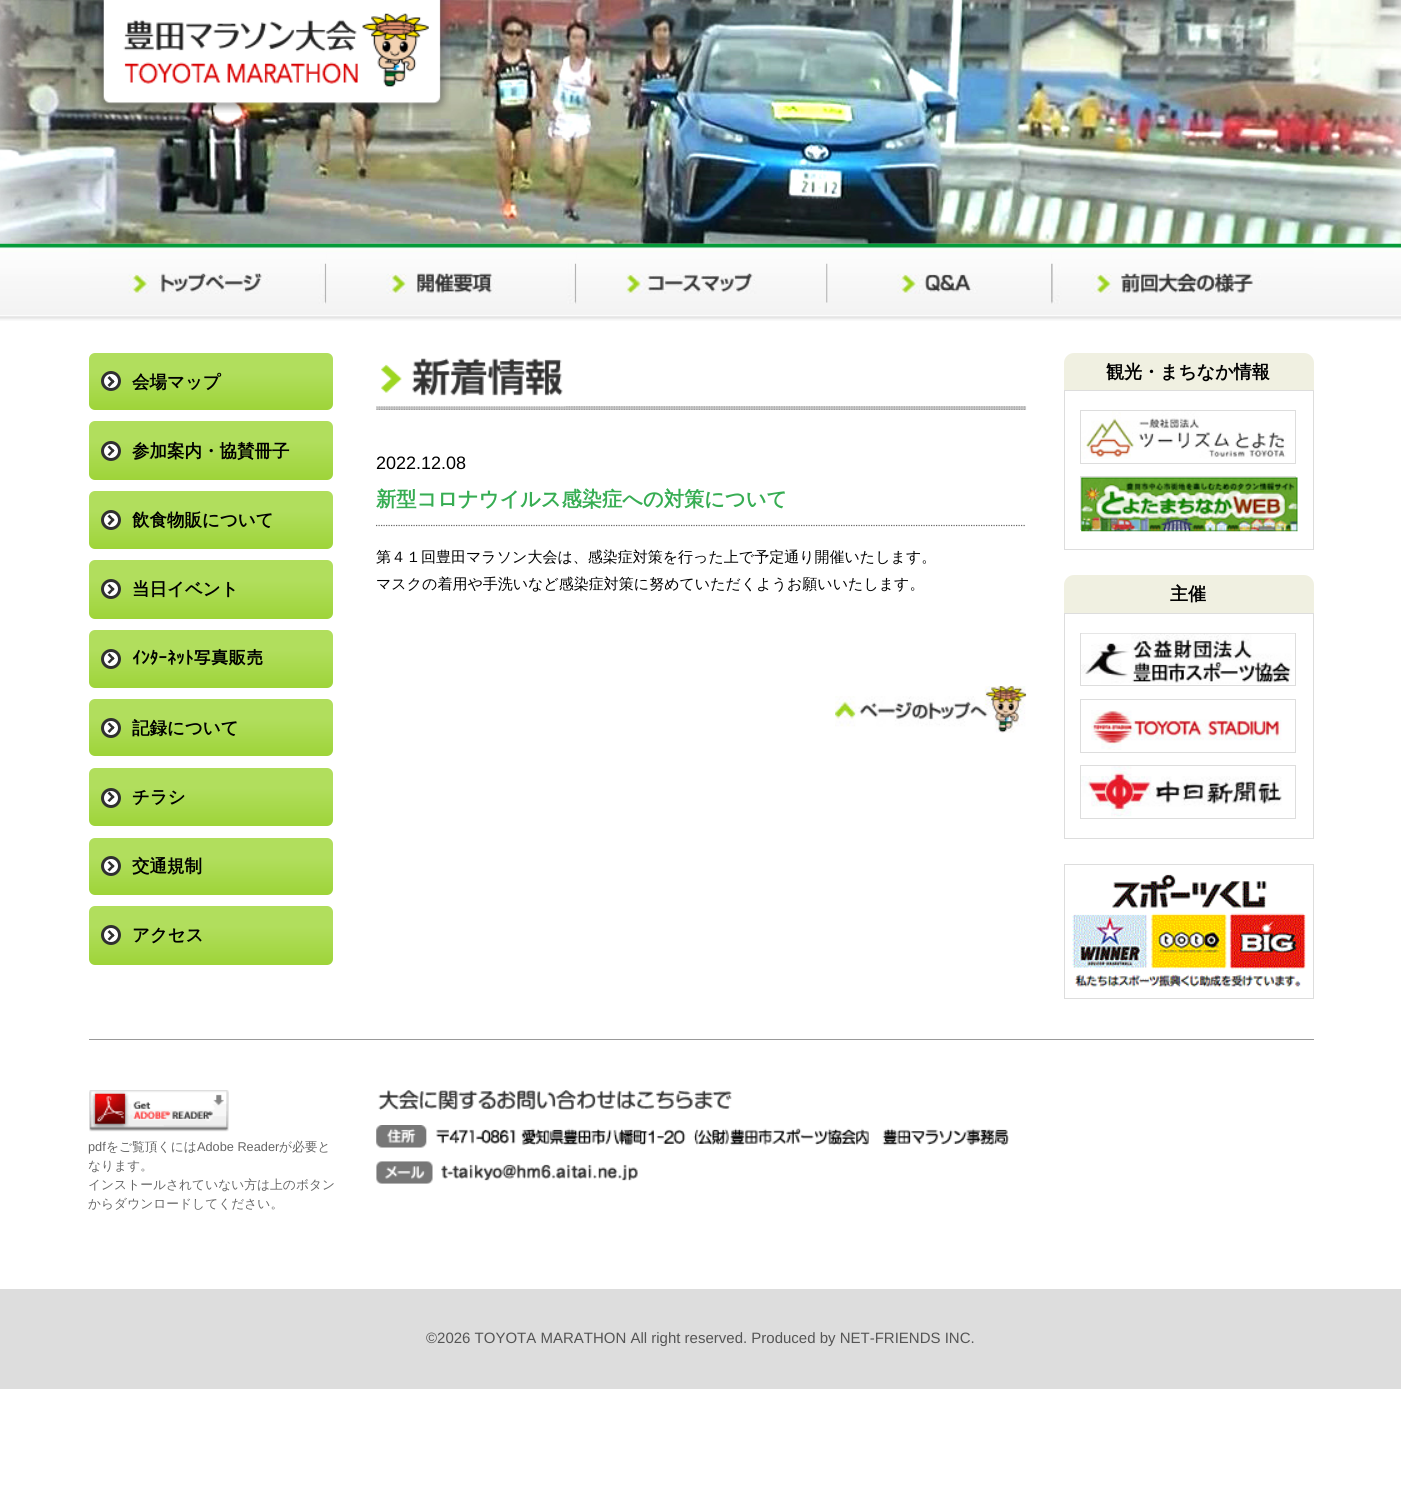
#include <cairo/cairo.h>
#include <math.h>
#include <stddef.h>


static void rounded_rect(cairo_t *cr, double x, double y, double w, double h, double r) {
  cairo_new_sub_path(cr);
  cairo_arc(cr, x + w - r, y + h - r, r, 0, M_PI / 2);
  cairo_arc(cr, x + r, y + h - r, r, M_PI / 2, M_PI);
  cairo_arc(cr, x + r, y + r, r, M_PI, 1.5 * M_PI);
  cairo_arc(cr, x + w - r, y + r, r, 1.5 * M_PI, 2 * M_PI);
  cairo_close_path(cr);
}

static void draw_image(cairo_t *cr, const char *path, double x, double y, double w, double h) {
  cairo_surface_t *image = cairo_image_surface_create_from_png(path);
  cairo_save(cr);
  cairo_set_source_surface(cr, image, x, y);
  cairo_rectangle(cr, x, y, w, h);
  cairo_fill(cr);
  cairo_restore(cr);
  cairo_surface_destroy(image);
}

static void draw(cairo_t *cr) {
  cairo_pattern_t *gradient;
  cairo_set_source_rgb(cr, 1, 1, 1);
  cairo_paint(cr);
  draw_image(cr, "images/1.png", 0, 0, 1401, 244);
  draw_image(cr, "images/2.png", 95, 0, 354, 113);
  draw_image(cr, "images/3.png", 0, 243, 1401, 78);
  draw_image(cr, "images/4.png", 89, 243, 238, 61);
  draw_image(cr, "images/5.png", 326, 243, 251, 61);
  draw_image(cr, "images/6.png", 576, 243, 252, 60);
  draw_image(cr, "images/7.png", 827, 243, 224, 60);
  draw_image(cr, "images/8.png", 1051, 243, 263, 61);
  gradient = cairo_pattern_create_linear(211, 353, 211, 410);
  cairo_pattern_add_color_stop_rgba(gradient, 0, 177 / 255.0, 222 / 255.0, 93 / 255.0, 1);
  cairo_pattern_add_color_stop_rgba(gradient, 0.35, 177 / 255.0, 222 / 255.0, 93 / 255.0, 1);
  cairo_pattern_add_color_stop_rgba(gradient, 1, 158 / 255.0, 212 / 255.0, 57 / 255.0, 1);
  cairo_set_source(cr, gradient);
  cairo_pattern_destroy(gradient);
  rounded_rect(cr, 89, 353, 244, 57, 6);
  cairo_fill(cr);
  cairo_set_source_rgb(cr, 1, 1, 1);
  cairo_arc(cr, 111, 381, 8.5, 0, 2 * M_PI);
  cairo_fill_preserve(cr);
  cairo_set_source_rgb(cr, 48 / 255.0, 48 / 255.0, 48 / 255.0);
  cairo_set_line_width(cr, 3);
  cairo_stroke(cr);
  cairo_new_path(cr);
  cairo_move_to(cr, 109.5, 376);
  cairo_line_to(cr, 114.5, 381.5);
  cairo_line_to(cr, 113, 383.5);
  cairo_line_to(cr, 107.5, 378);
  cairo_close_path(cr);
  cairo_fill(cr);
  cairo_new_path(cr);
  cairo_move_to(cr, 113, 379.5);
  cairo_line_to(cr, 114.5, 381.5);
  cairo_line_to(cr, 109.5, 387);
  cairo_line_to(cr, 107.5, 385);
  cairo_close_path(cr);
  cairo_fill(cr);
  gradient = cairo_pattern_create_linear(211, 421, 211, 480);
  cairo_pattern_add_color_stop_rgba(gradient, 0, 177 / 255.0, 222 / 255.0, 93 / 255.0, 1);
  cairo_pattern_add_color_stop_rgba(gradient, 0.35, 177 / 255.0, 222 / 255.0, 93 / 255.0, 1);
  cairo_pattern_add_color_stop_rgba(gradient, 1, 158 / 255.0, 212 / 255.0, 57 / 255.0, 1);
  cairo_set_source(cr, gradient);
  cairo_pattern_destroy(gradient);
  rounded_rect(cr, 89, 421, 244, 59, 6);
  cairo_fill(cr);
  cairo_set_source_rgb(cr, 1, 1, 1);
  cairo_arc(cr, 111, 451, 8.5, 0, 2 * M_PI);
  cairo_fill_preserve(cr);
  cairo_set_source_rgb(cr, 48 / 255.0, 48 / 255.0, 48 / 255.0);
  cairo_stroke(cr);
  cairo_new_path(cr);
  cairo_move_to(cr, 109.5, 445.5);
  cairo_line_to(cr, 114.5, 450.5);
  cairo_line_to(cr, 113, 452.5);
  cairo_line_to(cr, 107.5, 447);
  cairo_close_path(cr);
  cairo_fill(cr);
  cairo_new_path(cr);
  cairo_move_to(cr, 113, 449);
  cairo_line_to(cr, 114.5, 450.5);
  cairo_line_to(cr, 109.5, 456);
  cairo_line_to(cr, 107.5, 454.5);
  cairo_close_path(cr);
  cairo_fill(cr);
  gradient = cairo_pattern_create_linear(211, 491, 211, 549);
  cairo_pattern_add_color_stop_rgba(gradient, 0, 177 / 255.0, 222 / 255.0, 93 / 255.0, 1);
  cairo_pattern_add_color_stop_rgba(gradient, 0.35, 177 / 255.0, 222 / 255.0, 93 / 255.0, 1);
  cairo_pattern_add_color_stop_rgba(gradient, 1, 158 / 255.0, 212 / 255.0, 57 / 255.0, 1);
  cairo_set_source(cr, gradient);
  cairo_pattern_destroy(gradient);
  rounded_rect(cr, 89, 491, 244, 58, 6);
  cairo_fill(cr);
  cairo_set_source_rgb(cr, 1, 1, 1);
  cairo_arc(cr, 111, 520, 8.5, 0, 2 * M_PI);
  cairo_fill_preserve(cr);
  cairo_set_source_rgb(cr, 48 / 255.0, 48 / 255.0, 48 / 255.0);
  cairo_stroke(cr);
  cairo_new_path(cr);
  cairo_move_to(cr, 109.5, 514.5);
  cairo_line_to(cr, 114.5, 520);
  cairo_line_to(cr, 113, 521.5);
  cairo_line_to(cr, 107.5, 516.5);
  cairo_close_path(cr);
  cairo_fill(cr);
  cairo_new_path(cr);
  cairo_move_to(cr, 113, 518);
  cairo_line_to(cr, 114.5, 520);
  cairo_line_to(cr, 109.5, 525.5);
  cairo_line_to(cr, 107.5, 523.5);
  cairo_close_path(cr);
  cairo_fill(cr);
  gradient = cairo_pattern_create_linear(211, 560, 211, 619);
  cairo_pattern_add_color_stop_rgba(gradient, 0, 177 / 255.0, 222 / 255.0, 93 / 255.0, 1);
  cairo_pattern_add_color_stop_rgba(gradient, 0.35, 177 / 255.0, 222 / 255.0, 93 / 255.0, 1);
  cairo_pattern_add_color_stop_rgba(gradient, 1, 158 / 255.0, 212 / 255.0, 57 / 255.0, 1);
  cairo_set_source(cr, gradient);
  cairo_pattern_destroy(gradient);
  rounded_rect(cr, 89, 560, 244, 59, 6);
  cairo_fill(cr);
  cairo_set_source_rgb(cr, 1, 1, 1);
  cairo_arc(cr, 111, 589, 8.5, 0, 2 * M_PI);
  cairo_fill_preserve(cr);
  cairo_set_source_rgb(cr, 48 / 255.0, 48 / 255.0, 48 / 255.0);
  cairo_stroke(cr);
  cairo_new_path(cr);
  cairo_move_to(cr, 109.5, 584);
  cairo_line_to(cr, 114.5, 589);
  cairo_line_to(cr, 113, 591);
  cairo_line_to(cr, 107.5, 585.5);
  cairo_close_path(cr);
  cairo_fill(cr);
  cairo_new_path(cr);
  cairo_move_to(cr, 113, 587.5);
  cairo_line_to(cr, 114.5, 589);
  cairo_line_to(cr, 109.5, 594.5);
  cairo_line_to(cr, 107.5, 592.5);
  cairo_close_path(cr);
  cairo_fill(cr);
  gradient = cairo_pattern_create_linear(211, 630, 211, 688);
  cairo_pattern_add_color_stop_rgba(gradient, 0, 177 / 255.0, 222 / 255.0, 93 / 255.0, 1);
  cairo_pattern_add_color_stop_rgba(gradient, 0.35, 177 / 255.0, 222 / 255.0, 93 / 255.0, 1);
  cairo_pattern_add_color_stop_rgba(gradient, 1, 158 / 255.0, 212 / 255.0, 57 / 255.0, 1);
  cairo_set_source(cr, gradient);
  cairo_pattern_destroy(gradient);
  rounded_rect(cr, 89, 630, 244, 58, 6);
  cairo_fill(cr);
  cairo_set_source_rgb(cr, 1, 1, 1);
  cairo_arc(cr, 111, 659, 8.5, 0, 2 * M_PI);
  cairo_fill_preserve(cr);
  cairo_set_source_rgb(cr, 48 / 255.0, 48 / 255.0, 48 / 255.0);
  cairo_stroke(cr);
  cairo_new_path(cr);
  cairo_move_to(cr, 109.5, 653);
  cairo_line_to(cr, 114.5, 658.5);
  cairo_line_to(cr, 113, 660);
  cairo_line_to(cr, 107.5, 655);
  cairo_close_path(cr);
  cairo_fill(cr);
  cairo_new_path(cr);
  cairo_move_to(cr, 113, 656.5);
  cairo_line_to(cr, 114.5, 658.5);
  cairo_line_to(cr, 109.5, 663.5);
  cairo_line_to(cr, 107.5, 662);
  cairo_close_path(cr);
  cairo_fill(cr);
  gradient = cairo_pattern_create_linear(211, 699, 211, 756);
  cairo_pattern_add_color_stop_rgba(gradient, 0, 177 / 255.0, 222 / 255.0, 93 / 255.0, 1);
  cairo_pattern_add_color_stop_rgba(gradient, 0.35, 177 / 255.0, 222 / 255.0, 93 / 255.0, 1);
  cairo_pattern_add_color_stop_rgba(gradient, 1, 158 / 255.0, 212 / 255.0, 57 / 255.0, 1);
  cairo_set_source(cr, gradient);
  cairo_pattern_destroy(gradient);
  rounded_rect(cr, 89, 699, 244, 57, 6);
  cairo_fill(cr);
  cairo_set_source_rgb(cr, 1, 1, 1);
  cairo_arc(cr, 111, 728, 8.5, 0, 2 * M_PI);
  cairo_fill_preserve(cr);
  cairo_set_source_rgb(cr, 48 / 255.0, 48 / 255.0, 48 / 255.0);
  cairo_stroke(cr);
  cairo_new_path(cr);
  cairo_move_to(cr, 109.5, 722.5);
  cairo_line_to(cr, 114.5, 727.5);
  cairo_line_to(cr, 113, 729.5);
  cairo_line_to(cr, 107.5, 724);
  cairo_close_path(cr);
  cairo_fill(cr);
  cairo_new_path(cr);
  cairo_move_to(cr, 113, 726);
  cairo_line_to(cr, 114.5, 727.5);
  cairo_line_to(cr, 109.5, 733);
  cairo_line_to(cr, 107.5, 731);
  cairo_close_path(cr);
  cairo_fill(cr);
  gradient = cairo_pattern_create_linear(211, 768, 211, 826);
  cairo_pattern_add_color_stop_rgba(gradient, 0, 177 / 255.0, 222 / 255.0, 93 / 255.0, 1);
  cairo_pattern_add_color_stop_rgba(gradient, 0.35, 177 / 255.0, 222 / 255.0, 93 / 255.0, 1);
  cairo_pattern_add_color_stop_rgba(gradient, 1, 158 / 255.0, 212 / 255.0, 57 / 255.0, 1);
  cairo_set_source(cr, gradient);
  cairo_pattern_destroy(gradient);
  rounded_rect(cr, 89, 768, 244, 58, 6);
  cairo_fill(cr);
  cairo_set_source_rgb(cr, 1, 1, 1);
  cairo_arc(cr, 111, 798, 8.5, 0, 2 * M_PI);
  cairo_fill_preserve(cr);
  cairo_set_source_rgb(cr, 48 / 255.0, 48 / 255.0, 48 / 255.0);
  cairo_stroke(cr);
  cairo_new_path(cr);
  cairo_move_to(cr, 109.5, 791.5);
  cairo_line_to(cr, 114.5, 797);
  cairo_line_to(cr, 113, 798.5);
  cairo_line_to(cr, 107.5, 793.5);
  cairo_close_path(cr);
  cairo_fill(cr);
  cairo_new_path(cr);
  cairo_move_to(cr, 113, 795);
  cairo_line_to(cr, 114.5, 797);
  cairo_line_to(cr, 109.5, 802);
  cairo_line_to(cr, 107.5, 800.5);
  cairo_close_path(cr);
  cairo_fill(cr);
  gradient = cairo_pattern_create_linear(211, 838, 211, 895);
  cairo_pattern_add_color_stop_rgba(gradient, 0, 177 / 255.0, 222 / 255.0, 93 / 255.0, 1);
  cairo_pattern_add_color_stop_rgba(gradient, 0.35, 177 / 255.0, 222 / 255.0, 93 / 255.0, 1);
  cairo_pattern_add_color_stop_rgba(gradient, 1, 158 / 255.0, 212 / 255.0, 57 / 255.0, 1);
  cairo_set_source(cr, gradient);
  cairo_pattern_destroy(gradient);
  rounded_rect(cr, 89, 838, 244, 57, 6);
  cairo_fill(cr);
  cairo_set_source_rgb(cr, 1, 1, 1);
  cairo_arc(cr, 111, 866, 8.5, 0, 2 * M_PI);
  cairo_fill_preserve(cr);
  cairo_set_source_rgb(cr, 48 / 255.0, 48 / 255.0, 48 / 255.0);
  cairo_stroke(cr);
  cairo_new_path(cr);
  cairo_move_to(cr, 109.5, 861);
  cairo_line_to(cr, 114.5, 866);
  cairo_line_to(cr, 113, 868);
  cairo_line_to(cr, 107.5, 862.5);
  cairo_close_path(cr);
  cairo_fill(cr);
  cairo_new_path(cr);
  cairo_move_to(cr, 113, 864.5);
  cairo_line_to(cr, 114.5, 866);
  cairo_line_to(cr, 109.5, 871.5);
  cairo_line_to(cr, 107.5, 869.5);
  cairo_close_path(cr);
  cairo_fill(cr);
  gradient = cairo_pattern_create_linear(211, 906, 211, 965);
  cairo_pattern_add_color_stop_rgba(gradient, 0, 177 / 255.0, 222 / 255.0, 93 / 255.0, 1);
  cairo_pattern_add_color_stop_rgba(gradient, 0.35, 177 / 255.0, 222 / 255.0, 93 / 255.0, 1);
  cairo_pattern_add_color_stop_rgba(gradient, 1, 158 / 255.0, 212 / 255.0, 57 / 255.0, 1);
  cairo_set_source(cr, gradient);
  cairo_pattern_destroy(gradient);
  rounded_rect(cr, 89, 906, 244, 59, 6);
  cairo_fill(cr);
  cairo_set_source_rgb(cr, 1, 1, 1);
  cairo_arc(cr, 111, 935, 8.5, 0, 2 * M_PI);
  cairo_fill_preserve(cr);
  cairo_set_source_rgb(cr, 48 / 255.0, 48 / 255.0, 48 / 255.0);
  cairo_stroke(cr);
  cairo_new_path(cr);
  cairo_move_to(cr, 109.5, 930);
  cairo_line_to(cr, 114.5, 935.5);
  cairo_line_to(cr, 113, 937);
  cairo_line_to(cr, 107.5, 932);
  cairo_close_path(cr);
  cairo_fill(cr);
  cairo_new_path(cr);
  cairo_move_to(cr, 113, 933.5);
  cairo_line_to(cr, 114.5, 935.5);
  cairo_line_to(cr, 109.5, 940.5);
  cairo_line_to(cr, 107.5, 939);
  cairo_close_path(cr);
  cairo_fill(cr);
  draw_image(cr, "images/9.png", 376, 406, 651, 4);
  draw_image(cr, "images/10.png", 376, 358, 189, 49);
  cairo_new_path(cr);
  cairo_move_to(cr, 376, 525.5);
  cairo_line_to(cr, 1026, 525.5);
  cairo_set_source_rgb(cr, 102 / 255.0, 102 / 255.0, 102 / 255.0);
  cairo_set_line_width(cr, 1.2);
  cairo_set_dash(cr, (double[]){1.25, 1.25}, 2, 0);
  cairo_stroke(cr);
  draw_image(cr, "images/11.png", 835, 686, 192, 47);
  cairo_set_source_rgb(cr, 240 / 255.0, 240 / 255.0, 225 / 255.0);
  cairo_new_path(cr);
  cairo_move_to(cr, 1074, 353);
  cairo_line_to(cr, 1304, 353);
  cairo_curve_to(cr, 1309.5, 353, 1314, 357.5, 1314, 363);
  cairo_line_to(cr, 1314, 390);
  cairo_line_to(cr, 1064, 390);
  cairo_line_to(cr, 1064, 363);
  cairo_curve_to(cr, 1064, 357.5, 1068.5, 353, 1074, 353);
  cairo_close_path(cr);
  cairo_fill(cr);
  cairo_rectangle(cr, 1064.5, 390.5, 249, 159);
  cairo_set_source_rgb(cr, 221 / 255.0, 221 / 255.0, 221 / 255.0);
  cairo_set_line_width(cr, 1);
  cairo_set_dash(cr, NULL, 0, 0);
  cairo_stroke(cr);
  cairo_rectangle(cr, 1080.5, 410.5, 215, 53);
  cairo_stroke(cr);
  draw_image(cr, "images/12.png", 1081, 411, 205, 48);
  cairo_rectangle(cr, 1080.5, 476.5, 215, 53);
  cairo_stroke(cr);
  draw_image(cr, "images/13.png", 1081, 477, 217, 55);
  cairo_set_source_rgb(cr, 240 / 255.0, 240 / 255.0, 225 / 255.0);
  cairo_new_path(cr);
  cairo_move_to(cr, 1074, 575);
  cairo_line_to(cr, 1304, 575);
  cairo_curve_to(cr, 1309.5, 575, 1314, 579.5, 1314, 585);
  cairo_line_to(cr, 1314, 613);
  cairo_line_to(cr, 1064, 613);
  cairo_line_to(cr, 1064, 585);
  cairo_curve_to(cr, 1064, 579.5, 1068.5, 575, 1074, 575);
  cairo_close_path(cr);
  cairo_fill(cr);
  cairo_rectangle(cr, 1064.5, 613.5, 249, 225);
  cairo_set_source_rgb(cr, 221 / 255.0, 221 / 255.0, 221 / 255.0);
  cairo_stroke(cr);
  cairo_rectangle(cr, 1080.5, 633.5, 215, 52);
  cairo_stroke(cr);
  draw_image(cr, "images/14.png", 1081, 633, 214, 51);
  cairo_rectangle(cr, 1080.5, 699.5, 215, 53);
  cairo_stroke(cr);
  draw_image(cr, "images/15.png", 1091, 710, 191, 40);
  cairo_rectangle(cr, 1080.5, 765.5, 215, 53);
  cairo_stroke(cr);
  draw_image(cr, "images/16.png", 1081, 766, 201, 51);
  cairo_rectangle(cr, 1064.5, 864.5, 249, 134);
  cairo_stroke(cr);
  draw_image(cr, "images/17.png", 1072, 874, 234, 113);
  cairo_set_source_rgb(cr, 153 / 255.0, 153 / 255.0, 153 / 255.0);
  cairo_rectangle(cr, 89, 1039, 1225, 1);
  cairo_fill(cr);
  draw_image(cr, "images/18.png", 89, 1090, 140, 42);
  draw_image(cr, "images/19.png", 378, 1090, 354, 20);
  draw_image(cr, "images/20.png", 376, 1125, 633, 23);
  draw_image(cr, "images/21.png", 376, 1161, 262, 23);
  cairo_set_source_rgb(cr, 221 / 255.0, 221 / 255.0, 221 / 255.0);
  cairo_rectangle(cr, 0, 1289, 1401, 100);
  cairo_fill(cr);
  cairo_select_font_face(cr, "WenQuanYi Zen Hei", CAIRO_FONT_SLANT_NORMAL, CAIRO_FONT_WEIGHT_BOLD);
  cairo_set_font_size(cr, 17.5);
  cairo_set_source_rgb(cr, 0, 0, 0);
  cairo_move_to(cr, 132, 388);
  cairo_show_text(cr, "会場マップ");
  cairo_move_to(cr, 132, 457);
  cairo_show_text(cr, "参加案内・協賛冊子");
  cairo_move_to(cr, 132, 526);
  cairo_show_text(cr, "飲食物販について");
  cairo_move_to(cr, 132, 595);
  cairo_show_text(cr, "当日イベント");
  cairo_select_font_face(cr, "IPAPGothic", CAIRO_FONT_SLANT_NORMAL, CAIRO_FONT_WEIGHT_BOLD);
  cairo_move_to(cr, 132, 664);
  cairo_show_text(cr, "ｲﾝﾀｰﾈｯﾄ写真販売");
  cairo_select_font_face(cr, "WenQuanYi Zen Hei", CAIRO_FONT_SLANT_NORMAL, CAIRO_FONT_WEIGHT_BOLD);
  cairo_move_to(cr, 132, 734);
  cairo_show_text(cr, "記録について");
  cairo_move_to(cr, 132, 803);
  cairo_show_text(cr, "チラシ");
  cairo_move_to(cr, 132, 872);
  cairo_show_text(cr, "交通規制");
  cairo_move_to(cr, 132, 941);
  cairo_show_text(cr, "アクセス");
  cairo_select_font_face(cr, "Liberation Sans", CAIRO_FONT_SLANT_NORMAL, CAIRO_FONT_WEIGHT_NORMAL);
  cairo_set_font_size(cr, 18);
  cairo_move_to(cr, 376, 469);
  cairo_show_text(cr, "2022.12.08");
  cairo_select_font_face(cr, "WenQuanYi Zen Hei", CAIRO_FONT_SLANT_NORMAL, CAIRO_FONT_WEIGHT_BOLD);
  cairo_set_font_size(cr, 20.25);
  cairo_set_source_rgb(cr, 55 / 255.0, 173 / 255.0, 83 / 255.0);
  cairo_move_to(cr, 376, 506);
  cairo_show_text(cr, "新型コロナウイルス感染症への対策について");
  cairo_select_font_face(cr, "WenQuanYi Zen Hei Medium", CAIRO_FONT_SLANT_NORMAL, CAIRO_FONT_WEIGHT_NORMAL);
  cairo_set_font_size(cr, 15);
  cairo_set_source_rgb(cr, 0, 0, 0);
  cairo_move_to(cr, 376, 562);
  cairo_show_text(cr, "第４１回豊田マラソン大会は、感染症対策を行った上で予定通り開催いたします。");
  cairo_move_to(cr, 376, 589);
  cairo_show_text(cr, "マスクの着用や手洗いなど感染症対策に努めていただくようお願いいたします。");
  cairo_select_font_face(cr, "WenQuanYi Zen Hei", CAIRO_FONT_SLANT_NORMAL, CAIRO_FONT_WEIGHT_BOLD);
  cairo_set_font_size(cr, 18);
  cairo_move_to(cr, 1106, 378);
  cairo_show_text(cr, "観光・まちなか情報");
  cairo_move_to(cr, 1170, 600);
  cairo_show_text(cr, "主催");
  cairo_select_font_face(cr, "Liberation Sans", CAIRO_FONT_SLANT_NORMAL, CAIRO_FONT_WEIGHT_NORMAL);
  cairo_set_font_size(cr, 12.75);
  cairo_set_source_rgb(cr, 102 / 255.0, 102 / 255.0, 102 / 255.0);
  cairo_move_to(cr, 88, 1151);
  cairo_show_text(cr, "pdf");
  cairo_select_font_face(cr, "WenQuanYi Zen Hei Medium", CAIRO_FONT_SLANT_NORMAL, CAIRO_FONT_WEIGHT_NORMAL);
  cairo_move_to(cr, 106, 1151);
  cairo_show_text(cr, "をご覧頂くには");
  cairo_select_font_face(cr, "Liberation Sans", CAIRO_FONT_SLANT_NORMAL, CAIRO_FONT_WEIGHT_NORMAL);
  cairo_move_to(cr, 197, 1151);
  cairo_show_text(cr, "Adobe Reader");
  cairo_select_font_face(cr, "WenQuanYi Zen Hei Medium", CAIRO_FONT_SLANT_NORMAL, CAIRO_FONT_WEIGHT_NORMAL);
  cairo_move_to(cr, 279, 1151);
  cairo_show_text(cr, "が必要と");
  cairo_move_to(cr, 88, 1170);
  cairo_show_text(cr, "なります。");
  cairo_move_to(cr, 88, 1189);
  cairo_show_text(cr, "インストールされていない方は上のボタン");
  cairo_move_to(cr, 88, 1208);
  cairo_show_text(cr, "からダウンロードしてください。");
  cairo_select_font_face(cr, "Liberation Sans", CAIRO_FONT_SLANT_NORMAL, CAIRO_FONT_WEIGHT_NORMAL);
  cairo_set_font_size(cr, 15);
  cairo_set_source_rgb(cr, 85 / 255.0, 85 / 255.0, 85 / 255.0);
  cairo_move_to(cr, 426, 1343);
  cairo_show_text(cr, "©2026 TOYOTA MARATHON All right reserved. Produced by NET-FRIENDS INC.");
}

int main(void) {
  cairo_surface_t *surface = cairo_image_surface_create(CAIRO_FORMAT_RGB24, 1401, 1491);
  cairo_t *cr = cairo_create(surface);
  cairo_font_options_t *options = cairo_font_options_create();
  cairo_font_options_set_hint_metrics(options, CAIRO_HINT_METRICS_OFF);
  cairo_font_options_set_hint_style(options, CAIRO_HINT_STYLE_NONE);
  cairo_set_font_options(cr, options);
  cairo_set_miter_limit(cr, 4);
  draw(cr);
  cairo_surface_write_to_png(surface, "out.png");
  cairo_font_options_destroy(options);
  cairo_destroy(cr);
  cairo_surface_destroy(surface);
  return 0;
}
